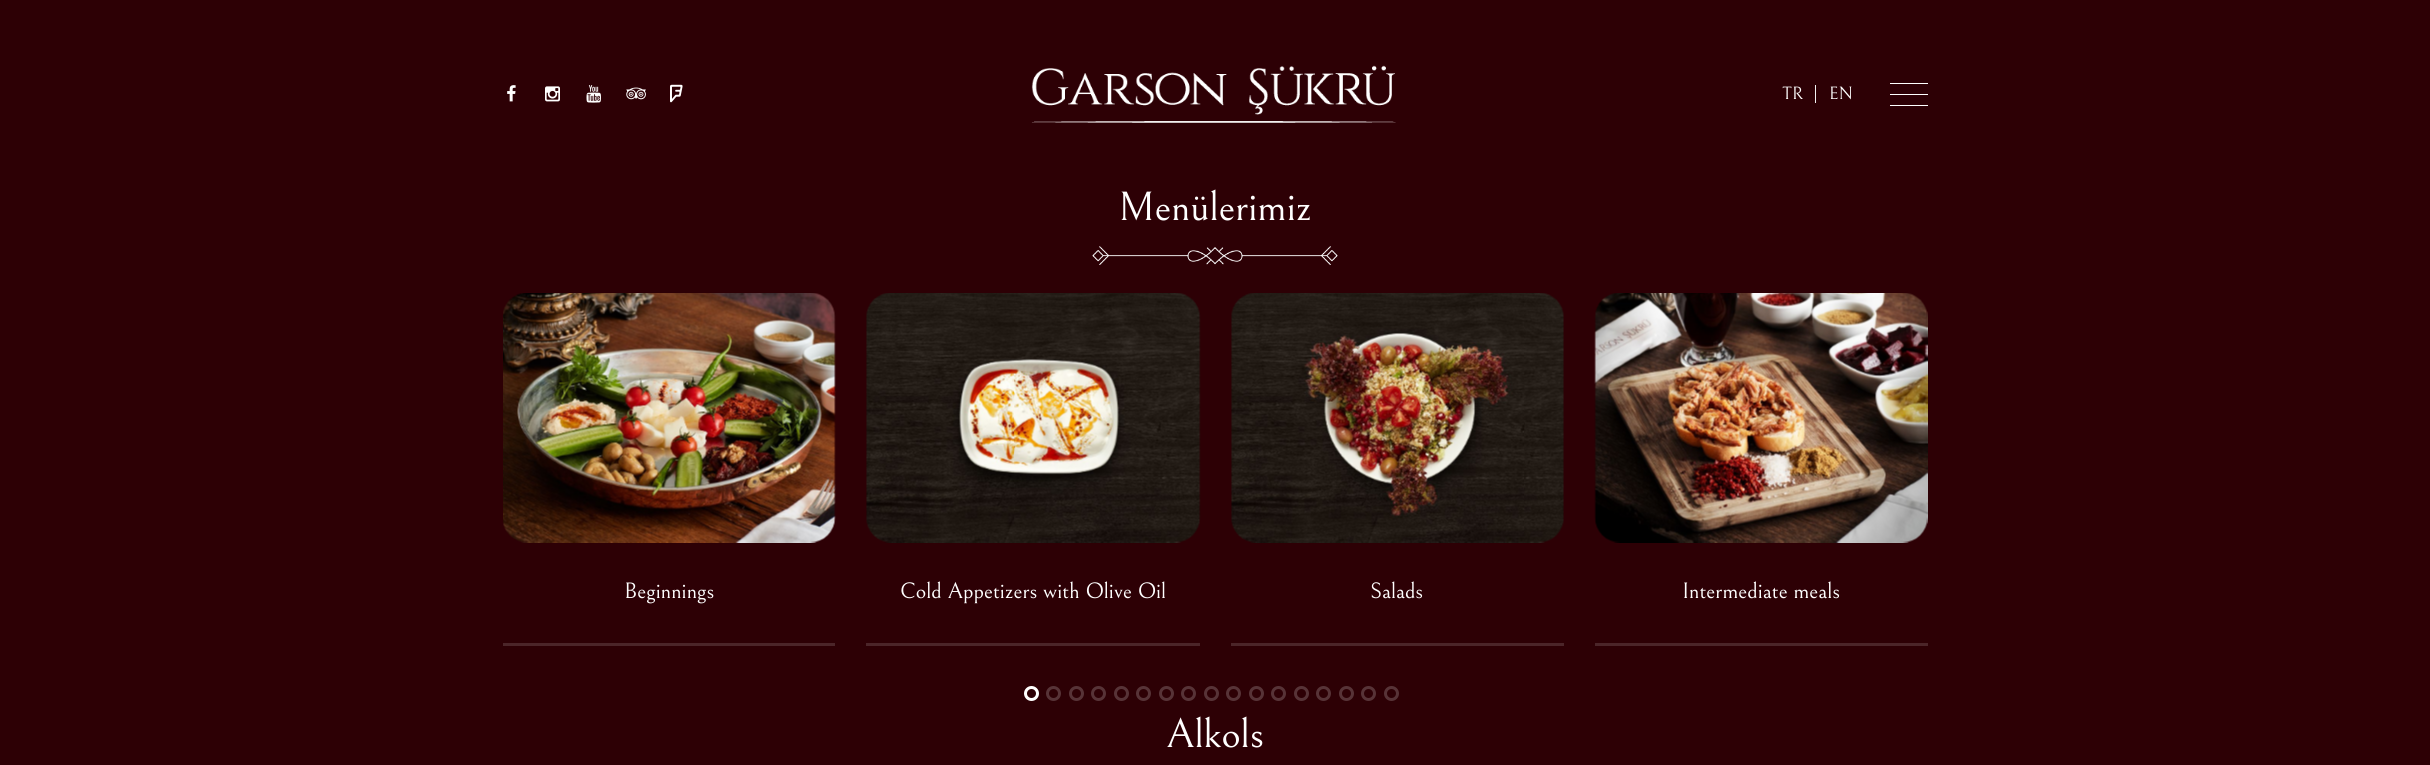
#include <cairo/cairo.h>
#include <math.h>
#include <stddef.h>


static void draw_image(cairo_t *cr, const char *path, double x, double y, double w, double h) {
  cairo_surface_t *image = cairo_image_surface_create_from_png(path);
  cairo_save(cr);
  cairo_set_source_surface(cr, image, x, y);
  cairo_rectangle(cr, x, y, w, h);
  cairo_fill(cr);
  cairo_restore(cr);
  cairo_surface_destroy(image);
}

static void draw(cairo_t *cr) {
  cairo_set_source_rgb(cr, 45 / 255.0, 0, 5 / 255.0);
  cairo_paint(cr);
  draw_image(cr, "images/1.png", 507, 85, 9, 17);
  draw_image(cr, "images/2.png", 545, 86, 15, 16);
  draw_image(cr, "images/3.png", 586, 85, 15, 18);
  draw_image(cr, "images/4.png", 626, 87, 20, 13);
  draw_image(cr, "images/5.png", 670, 84, 13, 19);
  draw_image(cr, "images/6.png", 1031, 65, 365, 58);
  cairo_set_source_rgb(cr, 241 / 255.0, 241 / 255.0, 241 / 255.0);
  cairo_rectangle(cr, 1815, 85, 1, 18);
  cairo_fill(cr);
  cairo_set_source_rgb(cr, 1, 1, 1);
  cairo_rectangle(cr, 1890, 83, 38, 1);
  cairo_fill(cr);
  cairo_rectangle(cr, 1890, 94, 38, 1);
  cairo_fill(cr);
  cairo_rectangle(cr, 1890, 105, 38, 1);
  cairo_fill(cr);
  draw_image(cr, "images/7.png", 1092, 246, 246, 19);
  cairo_set_source_rgb(cr, 75 / 255.0, 37 / 255.0, 41 / 255.0);
  cairo_rectangle(cr, 503, 643, 332, 3);
  cairo_fill(cr);
  draw_image(cr, "images/8.png", 503, 293, 333, 250);
  cairo_rectangle(cr, 866, 643, 334, 3);
  cairo_fill(cr);
  draw_image(cr, "images/9.png", 866, 293, 335, 250);
  cairo_rectangle(cr, 1231, 643, 333, 3);
  cairo_fill(cr);
  draw_image(cr, "images/10.png", 1231, 293, 333, 250);
  cairo_rectangle(cr, 1595, 643, 333, 3);
  cairo_fill(cr);
  draw_image(cr, "images/11.png", 1594, 293, 334, 250);
  cairo_arc(cr, 1031.5, 693.5, 6, 0, 2 * M_PI);
  cairo_set_source_rgb(cr, 1, 1, 1);
  cairo_set_line_width(cr, 3);
  cairo_stroke(cr);
  cairo_arc(cr, 1053.5, 693.5, 6, 0, 2 * M_PI);
  cairo_set_source_rgb(cr, 87 / 255.0, 51 / 255.0, 55 / 255.0);
  cairo_stroke(cr);
  cairo_arc(cr, 1076.5, 693.5, 6, 0, 2 * M_PI);
  cairo_stroke(cr);
  cairo_arc(cr, 1098.5, 693.5, 6, 0, 2 * M_PI);
  cairo_stroke(cr);
  cairo_arc(cr, 1121.5, 693.5, 6, 0, 2 * M_PI);
  cairo_stroke(cr);
  cairo_arc(cr, 1143.5, 693.5, 6, 0, 2 * M_PI);
  cairo_stroke(cr);
  cairo_arc(cr, 1166.5, 693.5, 6, 0, 2 * M_PI);
  cairo_stroke(cr);
  cairo_arc(cr, 1188.5, 693.5, 6, 0, 2 * M_PI);
  cairo_stroke(cr);
  cairo_arc(cr, 1211.5, 693.5, 6, 0, 2 * M_PI);
  cairo_stroke(cr);
  cairo_arc(cr, 1233.5, 693.5, 6, 0, 2 * M_PI);
  cairo_stroke(cr);
  cairo_arc(cr, 1256.5, 693.5, 6, 0, 2 * M_PI);
  cairo_stroke(cr);
  cairo_arc(cr, 1278.5, 693.5, 6, 0, 2 * M_PI);
  cairo_stroke(cr);
  cairo_arc(cr, 1301.5, 693.5, 6, 0, 2 * M_PI);
  cairo_stroke(cr);
  cairo_arc(cr, 1323.5, 693.5, 6, 0, 2 * M_PI);
  cairo_stroke(cr);
  cairo_arc(cr, 1346.5, 693.5, 6, 0, 2 * M_PI);
  cairo_stroke(cr);
  cairo_arc(cr, 1368.5, 693.5, 6, 0, 2 * M_PI);
  cairo_stroke(cr);
  cairo_arc(cr, 1391.5, 693.5, 6, 0, 2 * M_PI);
  cairo_stroke(cr);
  cairo_select_font_face(cr, "Bellefair", CAIRO_FONT_SLANT_NORMAL, CAIRO_FONT_WEIGHT_NORMAL);
  cairo_set_font_size(cr, 18);
  cairo_set_source_rgb(cr, 1, 1, 1);
  cairo_move_to(cr, 1782, 99);
  cairo_show_text(cr, "TR");
  cairo_move_to(cr, 1829, 99);
  cairo_show_text(cr, "EN");
  cairo_set_font_size(cr, 41.25);
  cairo_move_to(cr, 1118, 220);
  cairo_show_text(cr, "Menülerimiz");
  cairo_set_font_size(cr, 22.5);
  cairo_move_to(cr, 624, 598);
  cairo_show_text(cr, "Beginnings");
  cairo_move_to(cr, 900, 598);
  cairo_show_text(cr, "Cold Appetizers with Olive Oil");
  cairo_move_to(cr, 1370, 598);
  cairo_show_text(cr, "Salads");
  cairo_move_to(cr, 1682, 598);
  cairo_show_text(cr, "Intermediate meals");
  cairo_set_font_size(cr, 41.25);
  cairo_move_to(cr, 1166, 747);
  cairo_show_text(cr, "Alkols");
}

int main(void) {
  cairo_surface_t *surface = cairo_image_surface_create(CAIRO_FORMAT_RGB24, 2430, 765);
  cairo_t *cr = cairo_create(surface);
  cairo_font_options_t *options = cairo_font_options_create();
  cairo_font_options_set_hint_metrics(options, CAIRO_HINT_METRICS_OFF);
  cairo_font_options_set_hint_style(options, CAIRO_HINT_STYLE_NONE);
  cairo_set_font_options(cr, options);
  cairo_set_miter_limit(cr, 4);
  draw(cr);
  cairo_surface_write_to_png(surface, "out.png");
  cairo_font_options_destroy(options);
  cairo_destroy(cr);
  cairo_surface_destroy(surface);
  return 0;
}
